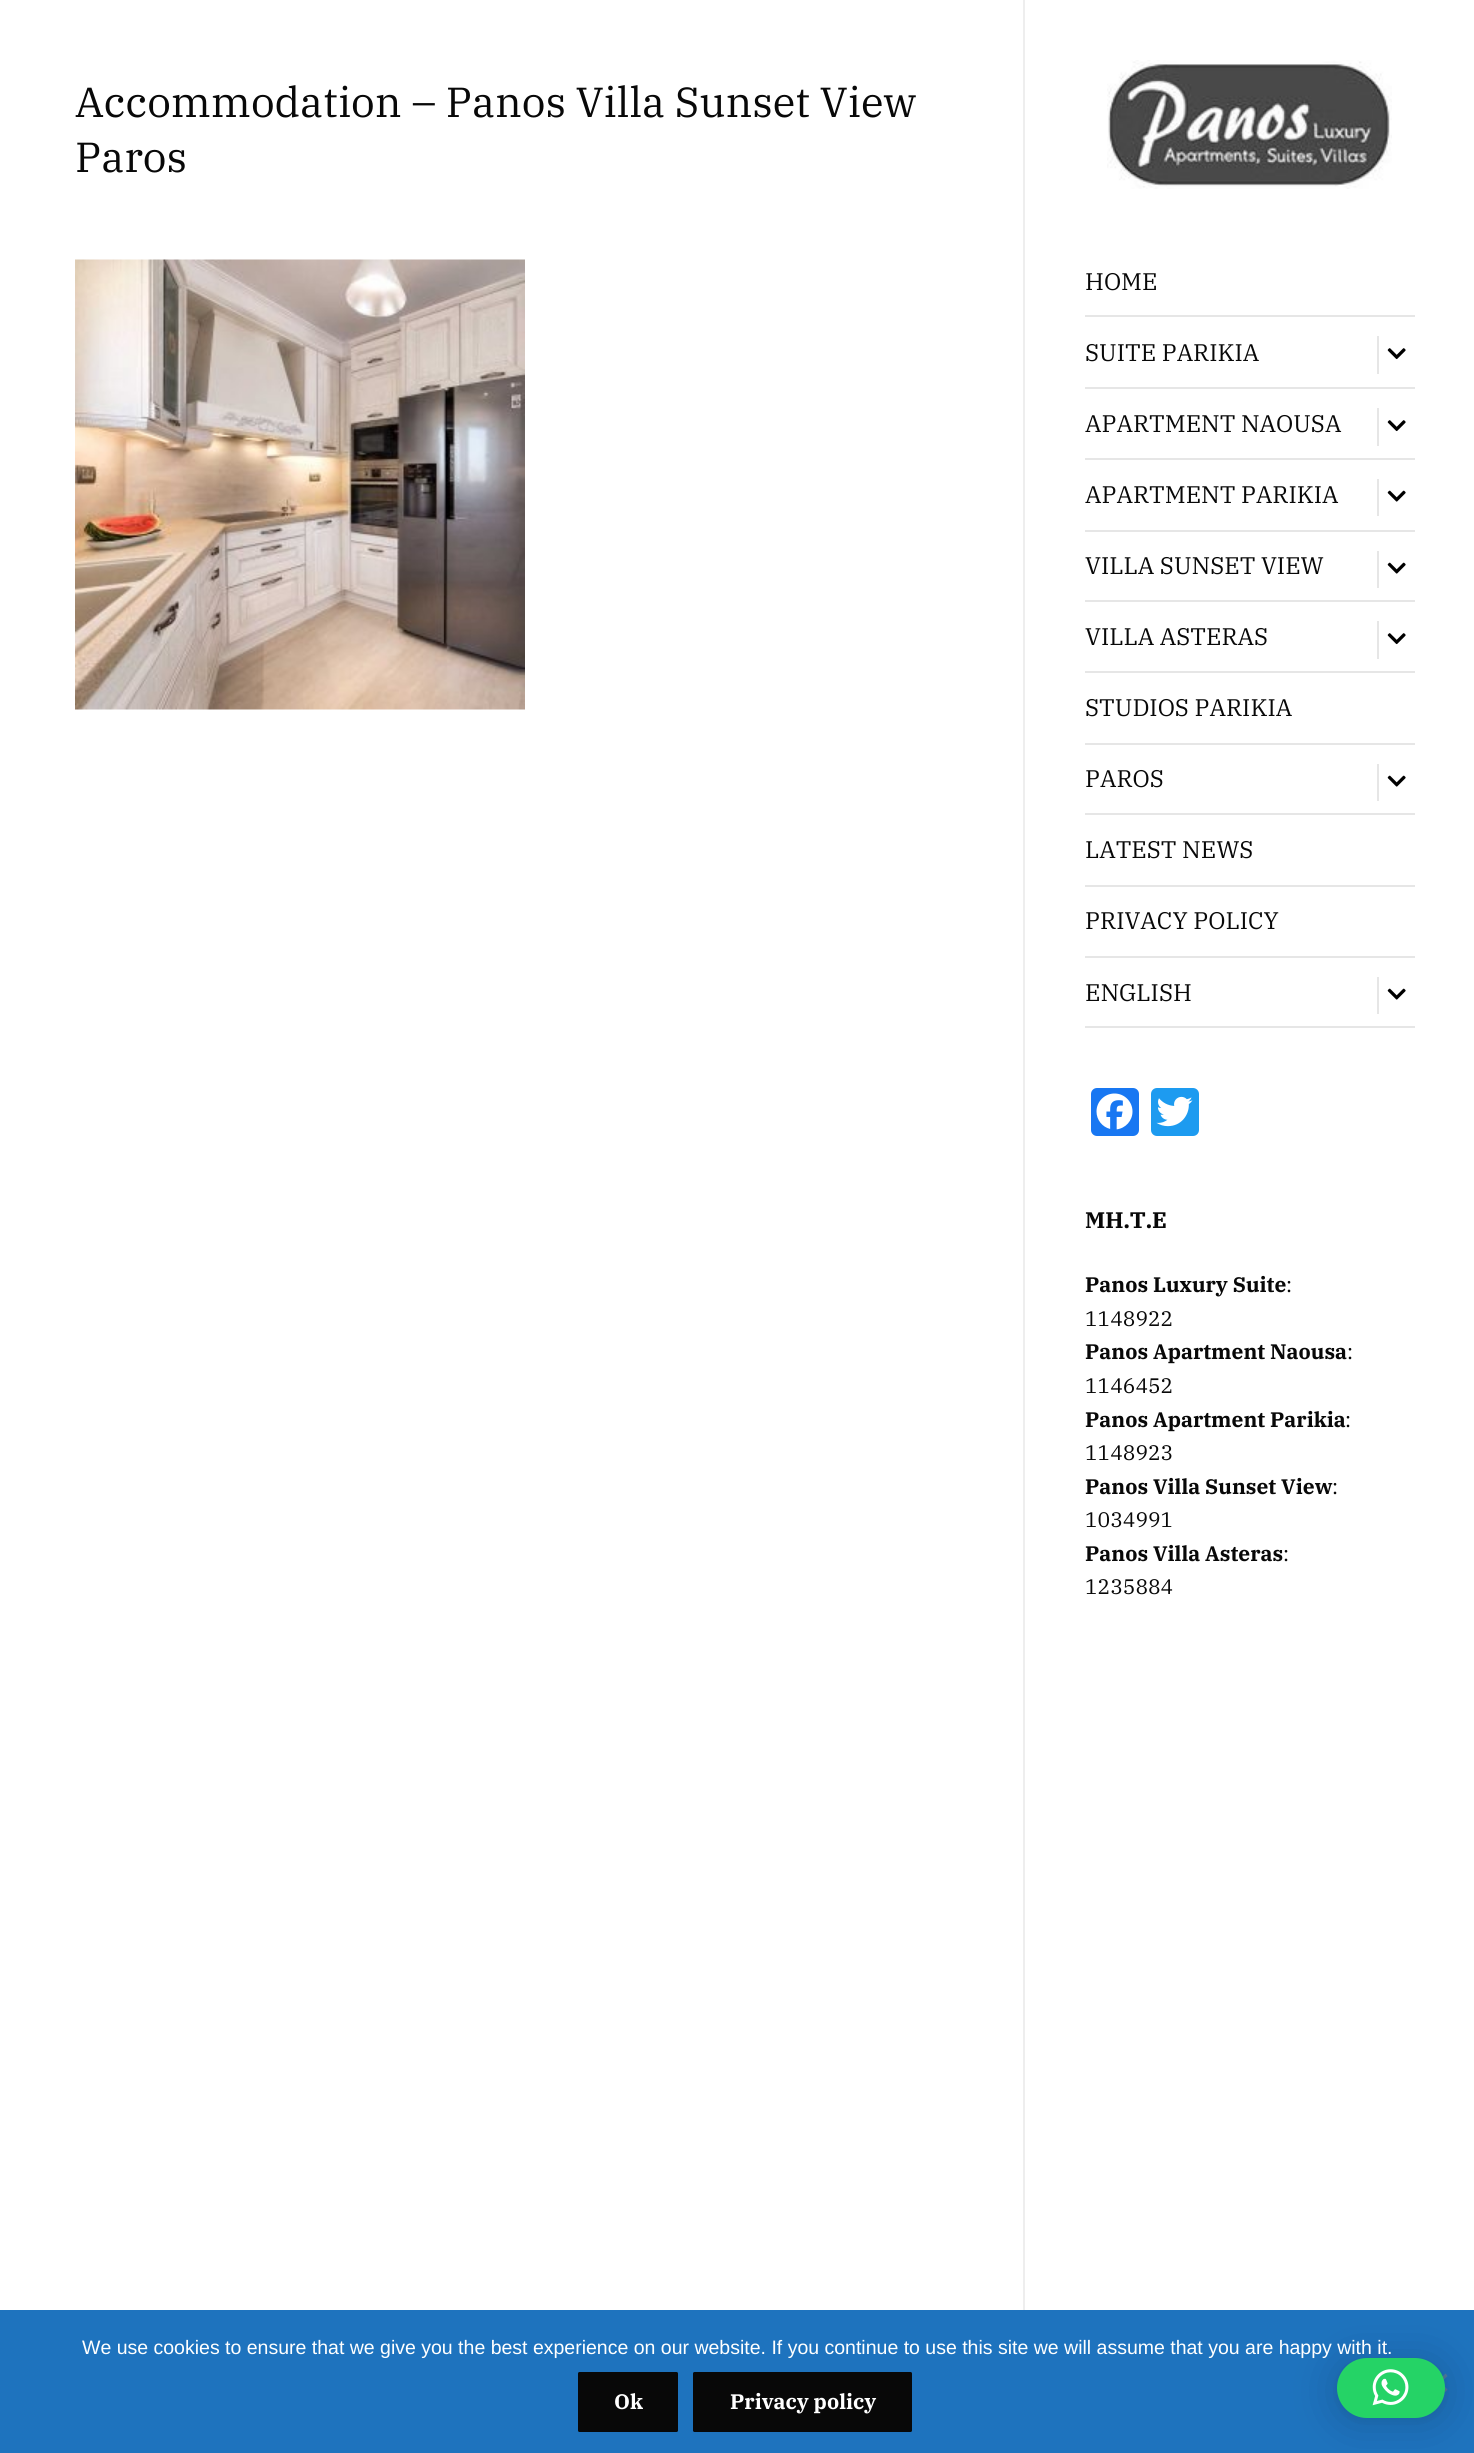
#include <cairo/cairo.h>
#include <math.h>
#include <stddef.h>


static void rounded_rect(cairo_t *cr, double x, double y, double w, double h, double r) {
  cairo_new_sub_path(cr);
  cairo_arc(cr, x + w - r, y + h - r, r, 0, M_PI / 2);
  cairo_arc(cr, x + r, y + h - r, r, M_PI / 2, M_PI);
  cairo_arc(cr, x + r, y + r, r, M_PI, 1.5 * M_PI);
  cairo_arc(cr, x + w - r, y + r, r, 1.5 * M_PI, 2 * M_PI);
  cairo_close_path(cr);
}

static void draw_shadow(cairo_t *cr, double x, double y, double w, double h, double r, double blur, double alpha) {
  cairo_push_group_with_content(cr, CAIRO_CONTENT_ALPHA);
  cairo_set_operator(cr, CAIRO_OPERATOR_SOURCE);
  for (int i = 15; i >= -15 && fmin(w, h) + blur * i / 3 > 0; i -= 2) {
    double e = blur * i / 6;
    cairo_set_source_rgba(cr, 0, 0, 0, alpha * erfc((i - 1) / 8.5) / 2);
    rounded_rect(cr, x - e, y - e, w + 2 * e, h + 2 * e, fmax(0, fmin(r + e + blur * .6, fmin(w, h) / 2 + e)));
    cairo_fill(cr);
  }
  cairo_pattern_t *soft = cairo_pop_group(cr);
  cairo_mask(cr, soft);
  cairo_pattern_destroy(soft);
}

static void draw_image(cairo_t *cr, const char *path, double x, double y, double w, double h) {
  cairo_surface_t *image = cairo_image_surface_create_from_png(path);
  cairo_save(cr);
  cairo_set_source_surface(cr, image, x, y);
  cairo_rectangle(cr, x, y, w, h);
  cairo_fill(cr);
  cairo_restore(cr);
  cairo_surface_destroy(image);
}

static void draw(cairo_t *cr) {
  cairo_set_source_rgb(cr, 1, 1, 1);
  cairo_paint(cr);
  cairo_set_source_rgb(cr, 238 / 255.0, 238 / 255.0, 238 / 255.0);
  cairo_rectangle(cr, 1023, 0, 2, 2310);
  cairo_fill(cr);
  draw_image(cr, "images/1.png", 75, 259, 450, 451);
  draw_image(cr, "images/2.png", 1107, 60, 285, 129);
  cairo_set_source_rgb(cr, 230 / 255.0, 230 / 255.0, 230 / 255.0);
  cairo_rectangle(cr, 1085, 315, 330, 2);
  cairo_fill(cr);
  cairo_rectangle(cr, 1085, 387, 330, 2);
  cairo_fill(cr);
  cairo_rectangle(cr, 1377, 336, 2, 38);
  cairo_fill(cr);
  draw_image(cr, "images/3.png", 1387, 348, 19, 12);
  cairo_rectangle(cr, 1085, 458, 330, 2);
  cairo_fill(cr);
  cairo_rectangle(cr, 1377, 408, 2, 38);
  cairo_fill(cr);
  draw_image(cr, "images/3.png", 1387, 420, 19, 12);
  cairo_rectangle(cr, 1085, 530, 330, 2);
  cairo_fill(cr);
  cairo_rectangle(cr, 1377, 479, 2, 37);
  cairo_fill(cr);
  draw_image(cr, "images/4.png", 1387, 490, 19, 12);
  cairo_rectangle(cr, 1085, 600, 330, 2);
  cairo_fill(cr);
  cairo_rectangle(cr, 1377, 551, 2, 37);
  cairo_fill(cr);
  draw_image(cr, "images/4.png", 1387, 562, 19, 12);
  cairo_rectangle(cr, 1085, 671, 330, 2);
  cairo_fill(cr);
  cairo_rectangle(cr, 1377, 621, 2, 38);
  cairo_fill(cr);
  draw_image(cr, "images/3.png", 1387, 633, 19, 12);
  cairo_rectangle(cr, 1085, 743, 330, 2);
  cairo_fill(cr);
  cairo_rectangle(cr, 1085, 813, 330, 2);
  cairo_fill(cr);
  cairo_rectangle(cr, 1377, 764, 2, 37);
  cairo_fill(cr);
  draw_image(cr, "images/4.png", 1387, 775, 19, 12);
  cairo_rectangle(cr, 1085, 885, 330, 2);
  cairo_fill(cr);
  cairo_rectangle(cr, 1085, 956, 330, 2);
  cairo_fill(cr);
  cairo_rectangle(cr, 1085, 1026, 330, 2);
  cairo_fill(cr);
  cairo_rectangle(cr, 1377, 977, 2, 37);
  cairo_fill(cr);
  draw_image(cr, "images/4.png", 1387, 988, 19, 12);
  cairo_set_source_rgb(cr, 24 / 255.0, 119 / 255.0, 242 / 255.0);
  rounded_rect(cr, 1091, 1088, 48, 48, 6);
  cairo_fill(cr);
  draw_image(cr, "images/5.png", 1096, 1093, 37, 37);
  cairo_set_source_rgb(cr, 29 / 255.0, 155 / 255.0, 240 / 255.0);
  rounded_rect(cr, 1151, 1088, 48, 48, 6);
  cairo_fill(cr);
  draw_image(cr, "images/6.png", 1156, 1096, 37, 31);
  cairo_set_source_rgb(cr, 30 / 255.0, 115 / 255.0, 190 / 255.0);
  cairo_rectangle(cr, 0, 2310, 1474, 143);
  cairo_fill(cr);
  cairo_set_source_rgb(cr, 79 / 255.0, 122 / 255.0, 159 / 255.0);
  cairo_new_path(cr);
  cairo_move_to(cr, 1445.5, 2373.5);
  cairo_line_to(cr, 1447.5, 2376);
  cairo_line_to(cr, 1431.5, 2392);
  cairo_line_to(cr, 1429.5, 2389.5);
  cairo_close_path(cr);
  cairo_fill(cr);
  cairo_new_path(cr);
  cairo_move_to(cr, 1429.5, 2376);
  cairo_line_to(cr, 1431.5, 2373.5);
  cairo_line_to(cr, 1447.5, 2389.5);
  cairo_line_to(cr, 1445.5, 2392);
  cairo_close_path(cr);
  cairo_fill(cr);
  cairo_set_source_rgb(cr, 0, 0, 0);
  draw_shadow(cr, 1337, 2361, 108, 60, 30, 24, 0.16);
  draw_shadow(cr, 1337, 2360, 108, 60, 30, 4.5, 0.06);
  cairo_set_source_rgb(cr, 8 / 255.0, 8 / 255.0, 8 / 255.0);
  rounded_rect(cr, 578, 2372, 100, 60, 1.5);
  cairo_fill(cr);
  rounded_rect(cr, 693, 2372, 219, 60, 1.5);
  cairo_fill(cr);
  cairo_select_font_face(cr, "IBM Plex Serif", CAIRO_FONT_SLANT_NORMAL, CAIRO_FONT_WEIGHT_NORMAL);
  cairo_set_font_size(cr, 42);
  cairo_move_to(cr, 75, 117);
  cairo_show_text(cr, "Accommodation – Panos Villa Sunset View");
  cairo_move_to(cr, 75, 172);
  cairo_show_text(cr, "Paros");
  cairo_set_font_size(cr, 24);
  cairo_move_to(cr, 1085, 290);
  cairo_show_text(cr, "HOME");
  cairo_move_to(cr, 1085, 361);
  cairo_show_text(cr, "SUITE PARIKIA");
  cairo_move_to(cr, 1085, 432);
  cairo_show_text(cr, "APARTMENT NAOUSA");
  cairo_move_to(cr, 1085, 503);
  cairo_show_text(cr, "APARTMENT PARIKIA");
  cairo_move_to(cr, 1085, 574);
  cairo_show_text(cr, "VILLA SUNSET VIEW");
  cairo_move_to(cr, 1085, 645);
  cairo_show_text(cr, "VILLA ASTERAS");
  cairo_move_to(cr, 1085, 716);
  cairo_show_text(cr, "STUDIOS PARIKIA");
  cairo_move_to(cr, 1085, 787);
  cairo_show_text(cr, "PAROS");
  cairo_move_to(cr, 1085, 858);
  cairo_show_text(cr, "LATEST NEWS");
  cairo_move_to(cr, 1085, 929);
  cairo_show_text(cr, "PRIVACY POLICY");
  cairo_move_to(cr, 1085, 1001);
  cairo_show_text(cr, "ENGLISH");
  cairo_select_font_face(cr, "IBM Plex Serif", CAIRO_FONT_SLANT_NORMAL, CAIRO_FONT_WEIGHT_BOLD);
  cairo_set_font_size(cr, 22.5);
  cairo_move_to(cr, 1085, 1228);
  cairo_show_text(cr, "MH.T.E");
  cairo_set_font_size(cr, 21);
  cairo_move_to(cr, 1085, 1292);
  cairo_show_text(cr, "Panos Luxury Suite");
  cairo_select_font_face(cr, "IBM Plex Serif", CAIRO_FONT_SLANT_NORMAL, CAIRO_FONT_WEIGHT_NORMAL);
  cairo_move_to(cr, 1286, 1292);
  cairo_show_text(cr, ":");
  cairo_move_to(cr, 1085, 1326);
  cairo_show_text(cr, "1148922");
  cairo_select_font_face(cr, "IBM Plex Serif", CAIRO_FONT_SLANT_NORMAL, CAIRO_FONT_WEIGHT_BOLD);
  cairo_move_to(cr, 1085, 1359);
  cairo_show_text(cr, "Panos Apartment Naousa");
  cairo_select_font_face(cr, "IBM Plex Serif", CAIRO_FONT_SLANT_NORMAL, CAIRO_FONT_WEIGHT_NORMAL);
  cairo_move_to(cr, 1347, 1359);
  cairo_show_text(cr, ":");
  cairo_move_to(cr, 1085, 1393);
  cairo_show_text(cr, "1146452");
  cairo_select_font_face(cr, "IBM Plex Serif", CAIRO_FONT_SLANT_NORMAL, CAIRO_FONT_WEIGHT_BOLD);
  cairo_move_to(cr, 1085, 1427);
  cairo_show_text(cr, "Panos Apartment Parikia");
  cairo_select_font_face(cr, "IBM Plex Serif", CAIRO_FONT_SLANT_NORMAL, CAIRO_FONT_WEIGHT_NORMAL);
  cairo_move_to(cr, 1345, 1427);
  cairo_show_text(cr, ":");
  cairo_move_to(cr, 1085, 1460);
  cairo_show_text(cr, "1148923");
  cairo_select_font_face(cr, "IBM Plex Serif", CAIRO_FONT_SLANT_NORMAL, CAIRO_FONT_WEIGHT_BOLD);
  cairo_move_to(cr, 1085, 1494);
  cairo_show_text(cr, "Panos Villa Sunset View");
  cairo_select_font_face(cr, "IBM Plex Serif", CAIRO_FONT_SLANT_NORMAL, CAIRO_FONT_WEIGHT_NORMAL);
  cairo_move_to(cr, 1332, 1494);
  cairo_show_text(cr, ":");
  cairo_move_to(cr, 1085, 1527);
  cairo_show_text(cr, "1034991");
  cairo_select_font_face(cr, "IBM Plex Serif", CAIRO_FONT_SLANT_NORMAL, CAIRO_FONT_WEIGHT_BOLD);
  cairo_move_to(cr, 1085, 1561);
  cairo_show_text(cr, "Panos Villa Asteras");
  cairo_select_font_face(cr, "IBM Plex Serif", CAIRO_FONT_SLANT_NORMAL, CAIRO_FONT_WEIGHT_NORMAL);
  cairo_move_to(cr, 1283, 1561);
  cairo_show_text(cr, ":");
  cairo_move_to(cr, 1085, 1594);
  cairo_show_text(cr, "1235884");
  cairo_select_font_face(cr, "Liberation Sans", CAIRO_FONT_SLANT_NORMAL, CAIRO_FONT_WEIGHT_NORMAL);
  cairo_set_font_size(cr, 19.5);
  cairo_set_source_rgb(cr, 1, 1, 1);
  cairo_move_to(cr, 82, 2354);
  cairo_show_text(cr, "We use cookies to ensure that we give you the best experience on our website. If you continue to use this site we will assume that you are happy with it.");
  cairo_set_source_rgb(cr, 37 / 255.0, 211 / 255.0, 102 / 255.0);
  rounded_rect(cr, 1337, 2358, 108, 60, 30);
  cairo_fill(cr);
  draw_image(cr, "images/7.png", 1372, 2369, 37, 37);
  cairo_select_font_face(cr, "IBM Plex Serif", CAIRO_FONT_SLANT_NORMAL, CAIRO_FONT_WEIGHT_BOLD);
  cairo_set_font_size(cr, 21);
  cairo_set_source_rgb(cr, 1, 1, 1);
  cairo_move_to(cr, 614, 2409);
  cairo_show_text(cr, "Ok");
  cairo_move_to(cr, 730, 2409);
  cairo_show_text(cr, "Privacy policy");
}

int main(void) {
  cairo_surface_t *surface = cairo_image_surface_create(CAIRO_FORMAT_RGB24, 1474, 2453);
  cairo_t *cr = cairo_create(surface);
  cairo_font_options_t *options = cairo_font_options_create();
  cairo_font_options_set_hint_metrics(options, CAIRO_HINT_METRICS_OFF);
  cairo_font_options_set_hint_style(options, CAIRO_HINT_STYLE_NONE);
  cairo_set_font_options(cr, options);
  cairo_set_miter_limit(cr, 4);
  draw(cr);
  cairo_surface_write_to_png(surface, "out.png");
  cairo_font_options_destroy(options);
  cairo_destroy(cr);
  cairo_surface_destroy(surface);
  return 0;
}
